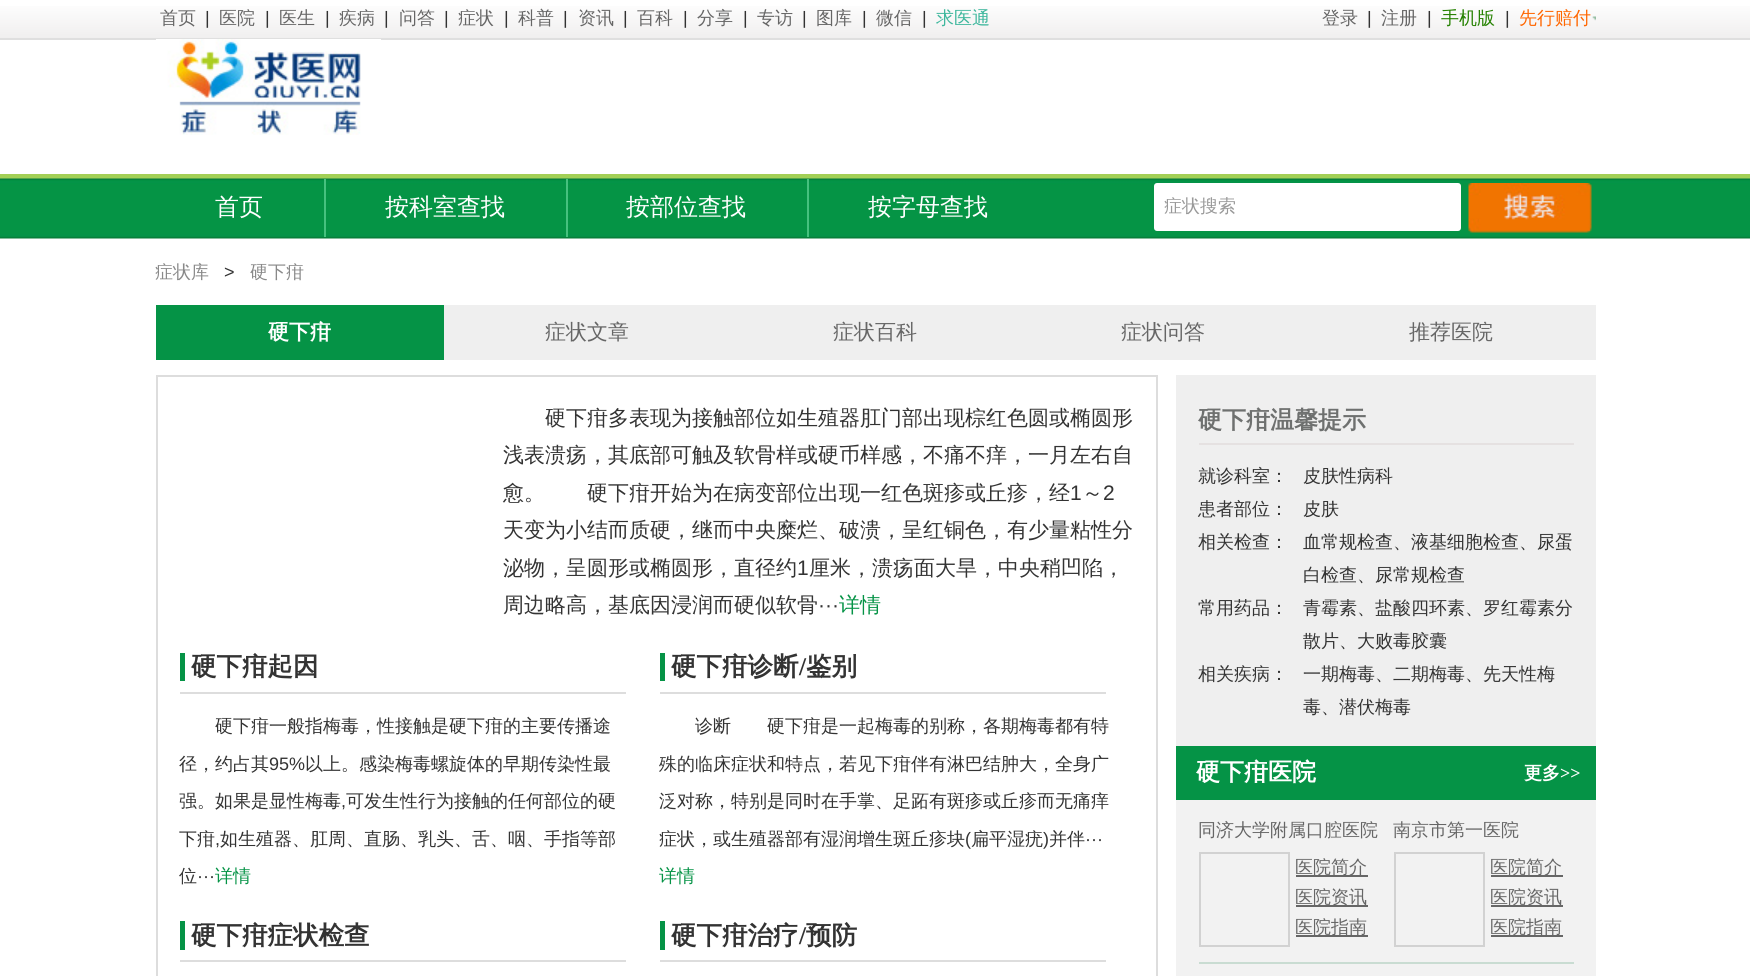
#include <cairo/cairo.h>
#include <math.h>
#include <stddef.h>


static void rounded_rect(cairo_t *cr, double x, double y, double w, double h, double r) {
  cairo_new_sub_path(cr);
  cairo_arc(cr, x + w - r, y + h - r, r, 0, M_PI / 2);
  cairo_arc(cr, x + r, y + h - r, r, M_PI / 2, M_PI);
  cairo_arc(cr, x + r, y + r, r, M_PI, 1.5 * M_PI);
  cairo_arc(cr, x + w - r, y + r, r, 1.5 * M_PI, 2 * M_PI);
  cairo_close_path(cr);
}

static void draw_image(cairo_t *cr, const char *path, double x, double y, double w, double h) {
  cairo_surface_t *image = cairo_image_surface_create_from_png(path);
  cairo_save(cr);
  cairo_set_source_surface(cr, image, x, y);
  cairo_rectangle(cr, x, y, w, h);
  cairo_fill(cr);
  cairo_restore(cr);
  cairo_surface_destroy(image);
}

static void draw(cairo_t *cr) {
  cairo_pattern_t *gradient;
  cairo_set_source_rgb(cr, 1, 1, 1);
  cairo_paint(cr);
  gradient = cairo_pattern_create_linear(875, 0, 875, 38);
  cairo_pattern_add_color_stop_rgba(gradient, 0, 1, 1, 1, 1);
  cairo_pattern_add_color_stop_rgba(gradient, 1, 240 / 255.0, 239 / 255.0, 239 / 255.0, 1);
  cairo_set_source(cr, gradient);
  cairo_pattern_destroy(gradient);
  cairo_rectangle(cr, 0, 6, 1750, 32);
  cairo_fill(cr);
  cairo_set_source_rgb(cr, 223 / 255.0, 223 / 255.0, 223 / 255.0);
  cairo_rectangle(cr, 0, 38, 1750, 2);
  cairo_fill(cr);
  draw_image(cr, "images/1.png", 1592, 16, 4, 5);
  draw_image(cr, "images/2.png", 156, 39, 225, 96);
  draw_image(cr, "images/3.png", 0, 174, 1750, 65);
  cairo_set_source_rgb(cr, 70 / 255.0, 193 / 255.0, 126 / 255.0);
  cairo_rectangle(cr, 324, 179, 2, 58);
  cairo_fill(cr);
  cairo_rectangle(cr, 566, 179, 2, 58);
  cairo_fill(cr);
  cairo_rectangle(cr, 807, 179, 2, 58);
  cairo_fill(cr);
  cairo_set_source_rgb(cr, 1, 1, 1);
  rounded_rect(cr, 1154, 183, 307, 48, 3);
  cairo_fill(cr);
  draw_image(cr, "images/4.png", 1468, 183, 124, 50);
  cairo_set_source_rgb(cr, 239 / 255.0, 239 / 255.0, 239 / 255.0);
  cairo_rectangle(cr, 444, 305, 1152, 55);
  cairo_fill(cr);
  cairo_set_source_rgb(cr, 5 / 255.0, 147 / 255.0, 70 / 255.0);
  cairo_rectangle(cr, 156, 305, 288, 55);
  cairo_fill(cr);
  cairo_rectangle(cr, 157, 376, 1000, 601);
  cairo_set_source_rgb(cr, 221 / 255.0, 221 / 255.0, 221 / 255.0);
  cairo_stroke(cr);
  cairo_rectangle(cr, 180, 692, 446, 2);
  cairo_fill(cr);
  cairo_set_source_rgb(cr, 5 / 255.0, 147 / 255.0, 70 / 255.0);
  cairo_rectangle(cr, 180, 653, 5, 28);
  cairo_fill(cr);
  cairo_set_source_rgb(cr, 221 / 255.0, 221 / 255.0, 221 / 255.0);
  cairo_rectangle(cr, 660, 692, 446, 2);
  cairo_fill(cr);
  cairo_set_source_rgb(cr, 5 / 255.0, 147 / 255.0, 70 / 255.0);
  cairo_rectangle(cr, 660, 653, 5, 28);
  cairo_fill(cr);
  cairo_set_source_rgb(cr, 221 / 255.0, 221 / 255.0, 221 / 255.0);
  cairo_rectangle(cr, 180, 960, 446, 2);
  cairo_fill(cr);
  cairo_set_source_rgb(cr, 5 / 255.0, 147 / 255.0, 70 / 255.0);
  cairo_rectangle(cr, 180, 921, 5, 29);
  cairo_fill(cr);
  cairo_set_source_rgb(cr, 221 / 255.0, 221 / 255.0, 221 / 255.0);
  cairo_rectangle(cr, 660, 960, 446, 2);
  cairo_fill(cr);
  cairo_set_source_rgb(cr, 5 / 255.0, 147 / 255.0, 70 / 255.0);
  cairo_rectangle(cr, 660, 921, 5, 29);
  cairo_fill(cr);
  cairo_set_source_rgb(cr, 239 / 255.0, 239 / 255.0, 239 / 255.0);
  cairo_rectangle(cr, 1176, 375, 420, 371);
  cairo_fill(cr);
  cairo_set_source_rgb(cr, 229 / 255.0, 225 / 255.0, 225 / 255.0);
  cairo_rectangle(cr, 1199, 443, 375, 2);
  cairo_fill(cr);
  cairo_set_source_rgb(cr, 5 / 255.0, 147 / 255.0, 70 / 255.0);
  cairo_rectangle(cr, 1176, 746, 420, 54);
  cairo_fill(cr);
  cairo_set_source_rgb(cr, 242 / 255.0, 242 / 255.0, 242 / 255.0);
  cairo_rectangle(cr, 1176, 800, 420, 176);
  cairo_fill(cr);
  cairo_set_source_rgb(cr, 201 / 255.0, 220 / 255.0, 210 / 255.0);
  cairo_rectangle(cr, 1199, 962, 375, 2);
  cairo_fill(cr);
  cairo_rectangle(cr, 1200, 853, 89, 93);
  cairo_set_source_rgb(cr, 210 / 255.0, 210 / 255.0, 210 / 255.0);
  cairo_stroke(cr);
  cairo_set_source_rgb(cr, 102 / 255.0, 102 / 255.0, 102 / 255.0);
  cairo_rectangle(cr, 1296, 875, 72, 2);
  cairo_fill(cr);
  cairo_rectangle(cr, 1296, 905, 72, 2);
  cairo_fill(cr);
  cairo_rectangle(cr, 1296, 935, 72, 2);
  cairo_fill(cr);
  cairo_rectangle(cr, 1395, 853, 89, 93);
  cairo_set_source_rgb(cr, 210 / 255.0, 210 / 255.0, 210 / 255.0);
  cairo_stroke(cr);
  cairo_set_source_rgb(cr, 102 / 255.0, 102 / 255.0, 102 / 255.0);
  cairo_rectangle(cr, 1491, 875, 72, 2);
  cairo_fill(cr);
  cairo_rectangle(cr, 1491, 905, 72, 2);
  cairo_fill(cr);
  cairo_rectangle(cr, 1491, 935, 72, 2);
  cairo_fill(cr);
  cairo_select_font_face(cr, "WenQuanYi Zen Hei Medium", CAIRO_FONT_SLANT_NORMAL, CAIRO_FONT_WEIGHT_NORMAL);
  cairo_set_font_size(cr, 18);
  cairo_move_to(cr, 160, 24);
  cairo_show_text(cr, "首页");
  cairo_select_font_face(cr, "Liberation Sans", CAIRO_FONT_SLANT_NORMAL, CAIRO_FONT_WEIGHT_NORMAL);
  cairo_set_source_rgb(cr, 51 / 255.0, 51 / 255.0, 51 / 255.0);
  cairo_move_to(cr, 205, 24);
  cairo_show_text(cr, "|");
  cairo_select_font_face(cr, "WenQuanYi Zen Hei Medium", CAIRO_FONT_SLANT_NORMAL, CAIRO_FONT_WEIGHT_NORMAL);
  cairo_set_source_rgb(cr, 102 / 255.0, 102 / 255.0, 102 / 255.0);
  cairo_move_to(cr, 219, 24);
  cairo_show_text(cr, "医院");
  cairo_select_font_face(cr, "Liberation Sans", CAIRO_FONT_SLANT_NORMAL, CAIRO_FONT_WEIGHT_NORMAL);
  cairo_set_source_rgb(cr, 51 / 255.0, 51 / 255.0, 51 / 255.0);
  cairo_move_to(cr, 265, 24);
  cairo_show_text(cr, "|");
  cairo_select_font_face(cr, "WenQuanYi Zen Hei Medium", CAIRO_FONT_SLANT_NORMAL, CAIRO_FONT_WEIGHT_NORMAL);
  cairo_set_source_rgb(cr, 102 / 255.0, 102 / 255.0, 102 / 255.0);
  cairo_move_to(cr, 279, 24);
  cairo_show_text(cr, "医生");
  cairo_select_font_face(cr, "Liberation Sans", CAIRO_FONT_SLANT_NORMAL, CAIRO_FONT_WEIGHT_NORMAL);
  cairo_set_source_rgb(cr, 51 / 255.0, 51 / 255.0, 51 / 255.0);
  cairo_move_to(cr, 325, 24);
  cairo_show_text(cr, "|");
  cairo_select_font_face(cr, "WenQuanYi Zen Hei Medium", CAIRO_FONT_SLANT_NORMAL, CAIRO_FONT_WEIGHT_NORMAL);
  cairo_set_source_rgb(cr, 102 / 255.0, 102 / 255.0, 102 / 255.0);
  cairo_move_to(cr, 339, 24);
  cairo_show_text(cr, "疾病");
  cairo_select_font_face(cr, "Liberation Sans", CAIRO_FONT_SLANT_NORMAL, CAIRO_FONT_WEIGHT_NORMAL);
  cairo_set_source_rgb(cr, 51 / 255.0, 51 / 255.0, 51 / 255.0);
  cairo_move_to(cr, 384, 24);
  cairo_show_text(cr, "|");
  cairo_select_font_face(cr, "WenQuanYi Zen Hei Medium", CAIRO_FONT_SLANT_NORMAL, CAIRO_FONT_WEIGHT_NORMAL);
  cairo_set_source_rgb(cr, 102 / 255.0, 102 / 255.0, 102 / 255.0);
  cairo_move_to(cr, 399, 24);
  cairo_show_text(cr, "问答");
  cairo_select_font_face(cr, "Liberation Sans", CAIRO_FONT_SLANT_NORMAL, CAIRO_FONT_WEIGHT_NORMAL);
  cairo_set_source_rgb(cr, 51 / 255.0, 51 / 255.0, 51 / 255.0);
  cairo_move_to(cr, 444, 24);
  cairo_show_text(cr, "|");
  cairo_select_font_face(cr, "WenQuanYi Zen Hei Medium", CAIRO_FONT_SLANT_NORMAL, CAIRO_FONT_WEIGHT_NORMAL);
  cairo_set_source_rgb(cr, 102 / 255.0, 102 / 255.0, 102 / 255.0);
  cairo_move_to(cr, 458, 24);
  cairo_show_text(cr, "症状");
  cairo_select_font_face(cr, "Liberation Sans", CAIRO_FONT_SLANT_NORMAL, CAIRO_FONT_WEIGHT_NORMAL);
  cairo_set_source_rgb(cr, 51 / 255.0, 51 / 255.0, 51 / 255.0);
  cairo_move_to(cr, 504, 24);
  cairo_show_text(cr, "|");
  cairo_select_font_face(cr, "WenQuanYi Zen Hei Medium", CAIRO_FONT_SLANT_NORMAL, CAIRO_FONT_WEIGHT_NORMAL);
  cairo_set_source_rgb(cr, 102 / 255.0, 102 / 255.0, 102 / 255.0);
  cairo_move_to(cr, 518, 24);
  cairo_show_text(cr, "科普");
  cairo_select_font_face(cr, "Liberation Sans", CAIRO_FONT_SLANT_NORMAL, CAIRO_FONT_WEIGHT_NORMAL);
  cairo_set_source_rgb(cr, 51 / 255.0, 51 / 255.0, 51 / 255.0);
  cairo_move_to(cr, 563, 24);
  cairo_show_text(cr, "|");
  cairo_select_font_face(cr, "WenQuanYi Zen Hei Medium", CAIRO_FONT_SLANT_NORMAL, CAIRO_FONT_WEIGHT_NORMAL);
  cairo_set_source_rgb(cr, 102 / 255.0, 102 / 255.0, 102 / 255.0);
  cairo_move_to(cr, 578, 24);
  cairo_show_text(cr, "资讯");
  cairo_select_font_face(cr, "Liberation Sans", CAIRO_FONT_SLANT_NORMAL, CAIRO_FONT_WEIGHT_NORMAL);
  cairo_set_source_rgb(cr, 51 / 255.0, 51 / 255.0, 51 / 255.0);
  cairo_move_to(cr, 623, 24);
  cairo_show_text(cr, "|");
  cairo_select_font_face(cr, "WenQuanYi Zen Hei Medium", CAIRO_FONT_SLANT_NORMAL, CAIRO_FONT_WEIGHT_NORMAL);
  cairo_set_source_rgb(cr, 102 / 255.0, 102 / 255.0, 102 / 255.0);
  cairo_move_to(cr, 637, 24);
  cairo_show_text(cr, "百科");
  cairo_select_font_face(cr, "Liberation Sans", CAIRO_FONT_SLANT_NORMAL, CAIRO_FONT_WEIGHT_NORMAL);
  cairo_set_source_rgb(cr, 51 / 255.0, 51 / 255.0, 51 / 255.0);
  cairo_move_to(cr, 683, 24);
  cairo_show_text(cr, "|");
  cairo_select_font_face(cr, "WenQuanYi Zen Hei Medium", CAIRO_FONT_SLANT_NORMAL, CAIRO_FONT_WEIGHT_NORMAL);
  cairo_set_source_rgb(cr, 102 / 255.0, 102 / 255.0, 102 / 255.0);
  cairo_move_to(cr, 697, 24);
  cairo_show_text(cr, "分享");
  cairo_select_font_face(cr, "Liberation Sans", CAIRO_FONT_SLANT_NORMAL, CAIRO_FONT_WEIGHT_NORMAL);
  cairo_set_source_rgb(cr, 51 / 255.0, 51 / 255.0, 51 / 255.0);
  cairo_move_to(cr, 743, 24);
  cairo_show_text(cr, "|");
  cairo_select_font_face(cr, "WenQuanYi Zen Hei Medium", CAIRO_FONT_SLANT_NORMAL, CAIRO_FONT_WEIGHT_NORMAL);
  cairo_set_source_rgb(cr, 102 / 255.0, 102 / 255.0, 102 / 255.0);
  cairo_move_to(cr, 757, 24);
  cairo_show_text(cr, "专访");
  cairo_select_font_face(cr, "Liberation Sans", CAIRO_FONT_SLANT_NORMAL, CAIRO_FONT_WEIGHT_NORMAL);
  cairo_set_source_rgb(cr, 51 / 255.0, 51 / 255.0, 51 / 255.0);
  cairo_move_to(cr, 802, 24);
  cairo_show_text(cr, "|");
  cairo_select_font_face(cr, "WenQuanYi Zen Hei Medium", CAIRO_FONT_SLANT_NORMAL, CAIRO_FONT_WEIGHT_NORMAL);
  cairo_set_source_rgb(cr, 102 / 255.0, 102 / 255.0, 102 / 255.0);
  cairo_move_to(cr, 816, 24);
  cairo_show_text(cr, "图库");
  cairo_select_font_face(cr, "Liberation Sans", CAIRO_FONT_SLANT_NORMAL, CAIRO_FONT_WEIGHT_NORMAL);
  cairo_set_source_rgb(cr, 51 / 255.0, 51 / 255.0, 51 / 255.0);
  cairo_move_to(cr, 862, 24);
  cairo_show_text(cr, "|");
  cairo_select_font_face(cr, "WenQuanYi Zen Hei Medium", CAIRO_FONT_SLANT_NORMAL, CAIRO_FONT_WEIGHT_NORMAL);
  cairo_set_source_rgb(cr, 102 / 255.0, 102 / 255.0, 102 / 255.0);
  cairo_move_to(cr, 876, 24);
  cairo_show_text(cr, "微信");
  cairo_select_font_face(cr, "Liberation Sans", CAIRO_FONT_SLANT_NORMAL, CAIRO_FONT_WEIGHT_NORMAL);
  cairo_set_source_rgb(cr, 51 / 255.0, 51 / 255.0, 51 / 255.0);
  cairo_move_to(cr, 922, 24);
  cairo_show_text(cr, "|");
  cairo_select_font_face(cr, "WenQuanYi Zen Hei Medium", CAIRO_FONT_SLANT_NORMAL, CAIRO_FONT_WEIGHT_NORMAL);
  cairo_set_source_rgb(cr, 62 / 255.0, 183 / 255.0, 157 / 255.0);
  cairo_move_to(cr, 936, 24);
  cairo_show_text(cr, "求医通");
  cairo_set_source_rgb(cr, 102 / 255.0, 102 / 255.0, 102 / 255.0);
  cairo_move_to(cr, 1322, 24);
  cairo_show_text(cr, "登录");
  cairo_select_font_face(cr, "Liberation Sans", CAIRO_FONT_SLANT_NORMAL, CAIRO_FONT_WEIGHT_NORMAL);
  cairo_set_source_rgb(cr, 51 / 255.0, 51 / 255.0, 51 / 255.0);
  cairo_move_to(cr, 1367, 24);
  cairo_show_text(cr, "|");
  cairo_select_font_face(cr, "WenQuanYi Zen Hei Medium", CAIRO_FONT_SLANT_NORMAL, CAIRO_FONT_WEIGHT_NORMAL);
  cairo_set_source_rgb(cr, 102 / 255.0, 102 / 255.0, 102 / 255.0);
  cairo_move_to(cr, 1381, 24);
  cairo_show_text(cr, "注册");
  cairo_select_font_face(cr, "Liberation Sans", CAIRO_FONT_SLANT_NORMAL, CAIRO_FONT_WEIGHT_NORMAL);
  cairo_set_source_rgb(cr, 51 / 255.0, 51 / 255.0, 51 / 255.0);
  cairo_move_to(cr, 1427, 24);
  cairo_show_text(cr, "|");
  cairo_select_font_face(cr, "WenQuanYi Zen Hei Medium", CAIRO_FONT_SLANT_NORMAL, CAIRO_FONT_WEIGHT_NORMAL);
  cairo_set_source_rgb(cr, 38 / 255.0, 130 / 255.0, 2 / 255.0);
  cairo_move_to(cr, 1441, 24);
  cairo_show_text(cr, "手机版");
  cairo_select_font_face(cr, "Liberation Sans", CAIRO_FONT_SLANT_NORMAL, CAIRO_FONT_WEIGHT_NORMAL);
  cairo_set_source_rgb(cr, 51 / 255.0, 51 / 255.0, 51 / 255.0);
  cairo_move_to(cr, 1505, 24);
  cairo_show_text(cr, "|");
  cairo_select_font_face(cr, "WenQuanYi Zen Hei Medium", CAIRO_FONT_SLANT_NORMAL, CAIRO_FONT_WEIGHT_NORMAL);
  cairo_set_source_rgb(cr, 1, 102 / 255.0, 0);
  cairo_move_to(cr, 1519, 24);
  cairo_show_text(cr, "先行赔付");
  cairo_set_font_size(cr, 24);
  cairo_set_source_rgb(cr, 1, 1, 1);
  cairo_move_to(cr, 215, 215);
  cairo_show_text(cr, "首页");
  cairo_move_to(cr, 385, 215);
  cairo_show_text(cr, "按科室查找");
  cairo_move_to(cr, 626, 215);
  cairo_show_text(cr, "按部位查找");
  cairo_move_to(cr, 868, 215);
  cairo_show_text(cr, "按字母查找");
  cairo_set_font_size(cr, 18);
  cairo_set_source_rgb(cr, 153 / 255.0, 153 / 255.0, 153 / 255.0);
  cairo_move_to(cr, 1164, 212);
  cairo_show_text(cr, "症状搜索");
  cairo_set_source_rgb(cr, 137 / 255.0, 137 / 255.0, 137 / 255.0);
  cairo_move_to(cr, 155, 278);
  cairo_show_text(cr, "症状库");
  cairo_select_font_face(cr, "Liberation Sans", CAIRO_FONT_SLANT_NORMAL, CAIRO_FONT_WEIGHT_NORMAL);
  cairo_set_source_rgb(cr, 51 / 255.0, 51 / 255.0, 51 / 255.0);
  cairo_move_to(cr, 224, 278);
  cairo_show_text(cr, ">");
  cairo_select_font_face(cr, "WenQuanYi Zen Hei Medium", CAIRO_FONT_SLANT_NORMAL, CAIRO_FONT_WEIGHT_NORMAL);
  cairo_set_source_rgb(cr, 137 / 255.0, 137 / 255.0, 137 / 255.0);
  cairo_move_to(cr, 250, 278);
  cairo_show_text(cr, "硬下疳");
  cairo_select_font_face(cr, "WenQuanYi Zen Hei", CAIRO_FONT_SLANT_NORMAL, CAIRO_FONT_WEIGHT_BOLD);
  cairo_set_font_size(cr, 21);
  cairo_set_source_rgb(cr, 1, 1, 1);
  cairo_move_to(cr, 268, 339);
  cairo_show_text(cr, "硬下疳");
  cairo_select_font_face(cr, "WenQuanYi Zen Hei Medium", CAIRO_FONT_SLANT_NORMAL, CAIRO_FONT_WEIGHT_NORMAL);
  cairo_set_source_rgb(cr, 102 / 255.0, 102 / 255.0, 102 / 255.0);
  cairo_move_to(cr, 545, 339);
  cairo_show_text(cr, "症状文章");
  cairo_move_to(cr, 833, 339);
  cairo_show_text(cr, "症状百科");
  cairo_move_to(cr, 1121, 339);
  cairo_show_text(cr, "症状问答");
  cairo_move_to(cr, 1409, 339);
  cairo_show_text(cr, "推荐医院");
  cairo_set_source_rgb(cr, 51 / 255.0, 51 / 255.0, 51 / 255.0);
  cairo_move_to(cr, 545, 425);
  cairo_show_text(cr, "硬下疳多表现为接触部位如生殖器肛门部出现棕红色圆或椭圆形");
  cairo_move_to(cr, 503, 462);
  cairo_show_text(cr, "浅表溃疡，其底部可触及软骨样或硬币样感，不痛不痒，一月左右自");
  cairo_move_to(cr, 503, 500);
  cairo_show_text(cr, "愈。　　硬下疳开始为在病变部位出现一红色斑疹或丘疹，经");
  cairo_select_font_face(cr, "Liberation Sans", CAIRO_FONT_SLANT_NORMAL, CAIRO_FONT_WEIGHT_NORMAL);
  cairo_move_to(cr, 1070, 500);
  cairo_show_text(cr, "1");
  cairo_select_font_face(cr, "WenQuanYi Zen Hei Medium", CAIRO_FONT_SLANT_NORMAL, CAIRO_FONT_WEIGHT_NORMAL);
  cairo_move_to(cr, 1082, 500);
  cairo_show_text(cr, "～");
  cairo_select_font_face(cr, "Liberation Sans", CAIRO_FONT_SLANT_NORMAL, CAIRO_FONT_WEIGHT_NORMAL);
  cairo_move_to(cr, 1103, 500);
  cairo_show_text(cr, "2");
  cairo_select_font_face(cr, "WenQuanYi Zen Hei Medium", CAIRO_FONT_SLANT_NORMAL, CAIRO_FONT_WEIGHT_NORMAL);
  cairo_move_to(cr, 503, 537);
  cairo_show_text(cr, "天变为小结而质硬，继而中央糜烂、破溃，呈红铜色，有少量粘性分");
  cairo_move_to(cr, 503, 575);
  cairo_show_text(cr, "泌物，呈圆形或椭圆形，直径约");
  cairo_select_font_face(cr, "Liberation Sans", CAIRO_FONT_SLANT_NORMAL, CAIRO_FONT_WEIGHT_NORMAL);
  cairo_move_to(cr, 797, 575);
  cairo_show_text(cr, "1");
  cairo_select_font_face(cr, "WenQuanYi Zen Hei Medium", CAIRO_FONT_SLANT_NORMAL, CAIRO_FONT_WEIGHT_NORMAL);
  cairo_move_to(cr, 809, 575);
  cairo_show_text(cr, "厘米，溃疡面大旱，中央稍凹陷，");
  cairo_move_to(cr, 503, 612);
  cairo_show_text(cr, "周边略高，基底因浸润而硬似软骨");
  cairo_select_font_face(cr, "Liberation Sans", CAIRO_FONT_SLANT_NORMAL, CAIRO_FONT_WEIGHT_NORMAL);
  cairo_move_to(cr, 818, 612);
  cairo_show_text(cr, "···");
  cairo_select_font_face(cr, "WenQuanYi Zen Hei Medium", CAIRO_FONT_SLANT_NORMAL, CAIRO_FONT_WEIGHT_NORMAL);
  cairo_set_source_rgb(cr, 5 / 255.0, 147 / 255.0, 70 / 255.0);
  cairo_move_to(cr, 839, 612);
  cairo_show_text(cr, "详情");
  cairo_select_font_face(cr, "WenQuanYi Zen Hei", CAIRO_FONT_SLANT_NORMAL, CAIRO_FONT_WEIGHT_BOLD);
  cairo_set_font_size(cr, 25.5);
  cairo_set_source_rgb(cr, 51 / 255.0, 51 / 255.0, 51 / 255.0);
  cairo_move_to(cr, 191, 675);
  cairo_show_text(cr, "硬下疳起因");
  cairo_select_font_face(cr, "WenQuanYi Zen Hei Medium", CAIRO_FONT_SLANT_NORMAL, CAIRO_FONT_WEIGHT_NORMAL);
  cairo_set_font_size(cr, 18);
  cairo_move_to(cr, 215, 732);
  cairo_show_text(cr, "硬下疳一般指梅毒，性接触是硬下疳的主要传播途");
  cairo_move_to(cr, 179, 770);
  cairo_show_text(cr, "径，约占其");
  cairo_select_font_face(cr, "Liberation Sans", CAIRO_FONT_SLANT_NORMAL, CAIRO_FONT_WEIGHT_NORMAL);
  cairo_move_to(cr, 269, 770);
  cairo_show_text(cr, "95%");
  cairo_select_font_face(cr, "WenQuanYi Zen Hei Medium", CAIRO_FONT_SLANT_NORMAL, CAIRO_FONT_WEIGHT_NORMAL);
  cairo_move_to(cr, 305, 770);
  cairo_show_text(cr, "以上。感染梅毒螺旋体的早期传染性最");
  cairo_move_to(cr, 179, 807);
  cairo_show_text(cr, "强。如果是显性梅毒");
  cairo_select_font_face(cr, "Liberation Sans", CAIRO_FONT_SLANT_NORMAL, CAIRO_FONT_WEIGHT_NORMAL);
  cairo_move_to(cr, 341, 807);
  cairo_show_text(cr, ",");
  cairo_select_font_face(cr, "WenQuanYi Zen Hei Medium", CAIRO_FONT_SLANT_NORMAL, CAIRO_FONT_WEIGHT_NORMAL);
  cairo_move_to(cr, 346, 807);
  cairo_show_text(cr, "可发生性行为接触的任何部位的硬");
  cairo_move_to(cr, 179, 845);
  cairo_show_text(cr, "下疳");
  cairo_select_font_face(cr, "Liberation Sans", CAIRO_FONT_SLANT_NORMAL, CAIRO_FONT_WEIGHT_NORMAL);
  cairo_move_to(cr, 215, 845);
  cairo_show_text(cr, ",");
  cairo_select_font_face(cr, "WenQuanYi Zen Hei Medium", CAIRO_FONT_SLANT_NORMAL, CAIRO_FONT_WEIGHT_NORMAL);
  cairo_move_to(cr, 220, 845);
  cairo_show_text(cr, "如生殖器、肛周、直肠、乳头、舌、咽、手指等部");
  cairo_move_to(cr, 179, 882);
  cairo_show_text(cr, "位");
  cairo_select_font_face(cr, "Liberation Sans", CAIRO_FONT_SLANT_NORMAL, CAIRO_FONT_WEIGHT_NORMAL);
  cairo_move_to(cr, 197, 882);
  cairo_show_text(cr, "···");
  cairo_select_font_face(cr, "WenQuanYi Zen Hei Medium", CAIRO_FONT_SLANT_NORMAL, CAIRO_FONT_WEIGHT_NORMAL);
  cairo_set_source_rgb(cr, 5 / 255.0, 147 / 255.0, 70 / 255.0);
  cairo_move_to(cr, 215, 882);
  cairo_show_text(cr, "详情");
  cairo_select_font_face(cr, "WenQuanYi Zen Hei", CAIRO_FONT_SLANT_NORMAL, CAIRO_FONT_WEIGHT_BOLD);
  cairo_set_font_size(cr, 25.5);
  cairo_set_source_rgb(cr, 51 / 255.0, 51 / 255.0, 51 / 255.0);
  cairo_move_to(cr, 671, 675);
  cairo_show_text(cr, "硬下疳诊断");
  cairo_select_font_face(cr, "Liberation Serif", CAIRO_FONT_SLANT_NORMAL, CAIRO_FONT_WEIGHT_BOLD);
  cairo_move_to(cr, 799, 675);
  cairo_show_text(cr, "/");
  cairo_select_font_face(cr, "WenQuanYi Zen Hei", CAIRO_FONT_SLANT_NORMAL, CAIRO_FONT_WEIGHT_BOLD);
  cairo_move_to(cr, 806, 675);
  cairo_show_text(cr, "鉴别");
  cairo_select_font_face(cr, "WenQuanYi Zen Hei Medium", CAIRO_FONT_SLANT_NORMAL, CAIRO_FONT_WEIGHT_NORMAL);
  cairo_set_font_size(cr, 18);
  cairo_move_to(cr, 695, 732);
  cairo_show_text(cr, "诊断　　硬下疳是一起梅毒的别称，各期梅毒都有特");
  cairo_move_to(cr, 659, 770);
  cairo_show_text(cr, "殊的临床症状和特点，若见下疳伴有淋巴结肿大，全身广");
  cairo_move_to(cr, 659, 807);
  cairo_show_text(cr, "泛对称，特别是同时在手掌、足跖有斑疹或丘疹而无痛痒");
  cairo_move_to(cr, 659, 845);
  cairo_show_text(cr, "症状，或生殖器部有湿润增生斑丘疹块");
  cairo_select_font_face(cr, "Liberation Sans", CAIRO_FONT_SLANT_NORMAL, CAIRO_FONT_WEIGHT_NORMAL);
  cairo_move_to(cr, 965, 845);
  cairo_show_text(cr, "(");
  cairo_select_font_face(cr, "WenQuanYi Zen Hei Medium", CAIRO_FONT_SLANT_NORMAL, CAIRO_FONT_WEIGHT_NORMAL);
  cairo_move_to(cr, 971, 845);
  cairo_show_text(cr, "扁平湿疣");
  cairo_select_font_face(cr, "Liberation Sans", CAIRO_FONT_SLANT_NORMAL, CAIRO_FONT_WEIGHT_NORMAL);
  cairo_move_to(cr, 1043, 845);
  cairo_show_text(cr, ")");
  cairo_select_font_face(cr, "WenQuanYi Zen Hei Medium", CAIRO_FONT_SLANT_NORMAL, CAIRO_FONT_WEIGHT_NORMAL);
  cairo_move_to(cr, 1049, 845);
  cairo_show_text(cr, "并伴");
  cairo_select_font_face(cr, "Liberation Sans", CAIRO_FONT_SLANT_NORMAL, CAIRO_FONT_WEIGHT_NORMAL);
  cairo_move_to(cr, 1085, 845);
  cairo_show_text(cr, "···");
  cairo_select_font_face(cr, "WenQuanYi Zen Hei Medium", CAIRO_FONT_SLANT_NORMAL, CAIRO_FONT_WEIGHT_NORMAL);
  cairo_set_source_rgb(cr, 5 / 255.0, 147 / 255.0, 70 / 255.0);
  cairo_move_to(cr, 659, 882);
  cairo_show_text(cr, "详情");
  cairo_select_font_face(cr, "WenQuanYi Zen Hei", CAIRO_FONT_SLANT_NORMAL, CAIRO_FONT_WEIGHT_BOLD);
  cairo_set_font_size(cr, 25.5);
  cairo_set_source_rgb(cr, 51 / 255.0, 51 / 255.0, 51 / 255.0);
  cairo_move_to(cr, 191, 944);
  cairo_show_text(cr, "硬下疳症状检查");
  cairo_move_to(cr, 671, 944);
  cairo_show_text(cr, "硬下疳治疗");
  cairo_select_font_face(cr, "Liberation Serif", CAIRO_FONT_SLANT_NORMAL, CAIRO_FONT_WEIGHT_BOLD);
  cairo_move_to(cr, 799, 944);
  cairo_show_text(cr, "/");
  cairo_select_font_face(cr, "WenQuanYi Zen Hei", CAIRO_FONT_SLANT_NORMAL, CAIRO_FONT_WEIGHT_BOLD);
  cairo_move_to(cr, 806, 944);
  cairo_show_text(cr, "预防");
  cairo_set_font_size(cr, 24);
  cairo_set_source_rgb(cr, 110 / 255.0, 112 / 255.0, 111 / 255.0);
  cairo_move_to(cr, 1198, 428);
  cairo_show_text(cr, "硬下疳温馨提示");
  cairo_select_font_face(cr, "WenQuanYi Zen Hei Medium", CAIRO_FONT_SLANT_NORMAL, CAIRO_FONT_WEIGHT_NORMAL);
  cairo_set_font_size(cr, 18);
  cairo_set_source_rgb(cr, 51 / 255.0, 51 / 255.0, 51 / 255.0);
  cairo_move_to(cr, 1198, 482);
  cairo_show_text(cr, "就诊科室：");
  cairo_move_to(cr, 1303, 482);
  cairo_show_text(cr, "皮肤性病科");
  cairo_move_to(cr, 1198, 515);
  cairo_show_text(cr, "患者部位：");
  cairo_move_to(cr, 1303, 515);
  cairo_show_text(cr, "皮肤");
  cairo_move_to(cr, 1198, 548);
  cairo_show_text(cr, "相关检查：");
  cairo_move_to(cr, 1303, 548);
  cairo_show_text(cr, "血常规检查、液基细胞检查、尿蛋");
  cairo_move_to(cr, 1303, 581);
  cairo_show_text(cr, "白检查、尿常规检查");
  cairo_move_to(cr, 1198, 614);
  cairo_show_text(cr, "常用药品：");
  cairo_move_to(cr, 1303, 614);
  cairo_show_text(cr, "青霉素、盐酸四环素、罗红霉素分");
  cairo_move_to(cr, 1303, 647);
  cairo_show_text(cr, "散片、大败毒胶囊");
  cairo_move_to(cr, 1198, 680);
  cairo_show_text(cr, "相关疾病：");
  cairo_move_to(cr, 1303, 680);
  cairo_show_text(cr, "一期梅毒、二期梅毒、先天性梅");
  cairo_move_to(cr, 1303, 713);
  cairo_show_text(cr, "毒、潜伏梅毒");
  cairo_select_font_face(cr, "WenQuanYi Zen Hei", CAIRO_FONT_SLANT_NORMAL, CAIRO_FONT_WEIGHT_BOLD);
  cairo_set_font_size(cr, 24);
  cairo_set_source_rgb(cr, 1, 1, 1);
  cairo_move_to(cr, 1196, 780);
  cairo_show_text(cr, "硬下疳医院");
  cairo_set_font_size(cr, 18);
  cairo_move_to(cr, 1524, 779);
  cairo_show_text(cr, "更多");
  cairo_select_font_face(cr, "Liberation Serif", CAIRO_FONT_SLANT_NORMAL, CAIRO_FONT_WEIGHT_BOLD);
  cairo_move_to(cr, 1560, 779);
  cairo_show_text(cr, ">>");
  cairo_select_font_face(cr, "WenQuanYi Zen Hei Medium", CAIRO_FONT_SLANT_NORMAL, CAIRO_FONT_WEIGHT_NORMAL);
  cairo_set_source_rgb(cr, 102 / 255.0, 102 / 255.0, 102 / 255.0);
  cairo_move_to(cr, 1198, 836);
  cairo_show_text(cr, "同济大学附属口腔医院");
  cairo_move_to(cr, 1295, 873);
  cairo_show_text(cr, "医院简介");
  cairo_move_to(cr, 1295, 903);
  cairo_show_text(cr, "医院资讯");
  cairo_move_to(cr, 1295, 933);
  cairo_show_text(cr, "医院指南");
  cairo_move_to(cr, 1393, 836);
  cairo_show_text(cr, "南京市第一医院");
  cairo_move_to(cr, 1490, 873);
  cairo_show_text(cr, "医院简介");
  cairo_move_to(cr, 1490, 903);
  cairo_show_text(cr, "医院资讯");
  cairo_move_to(cr, 1490, 933);
  cairo_show_text(cr, "医院指南");
}

int main(void) {
  cairo_surface_t *surface = cairo_image_surface_create(CAIRO_FORMAT_RGB24, 1750, 976);
  cairo_t *cr = cairo_create(surface);
  cairo_font_options_t *options = cairo_font_options_create();
  cairo_font_options_set_hint_metrics(options, CAIRO_HINT_METRICS_OFF);
  cairo_font_options_set_hint_style(options, CAIRO_HINT_STYLE_NONE);
  cairo_set_font_options(cr, options);
  cairo_set_miter_limit(cr, 4);
  draw(cr);
  cairo_surface_write_to_png(surface, "out.png");
  cairo_font_options_destroy(options);
  cairo_destroy(cr);
  cairo_surface_destroy(surface);
  return 0;
}
